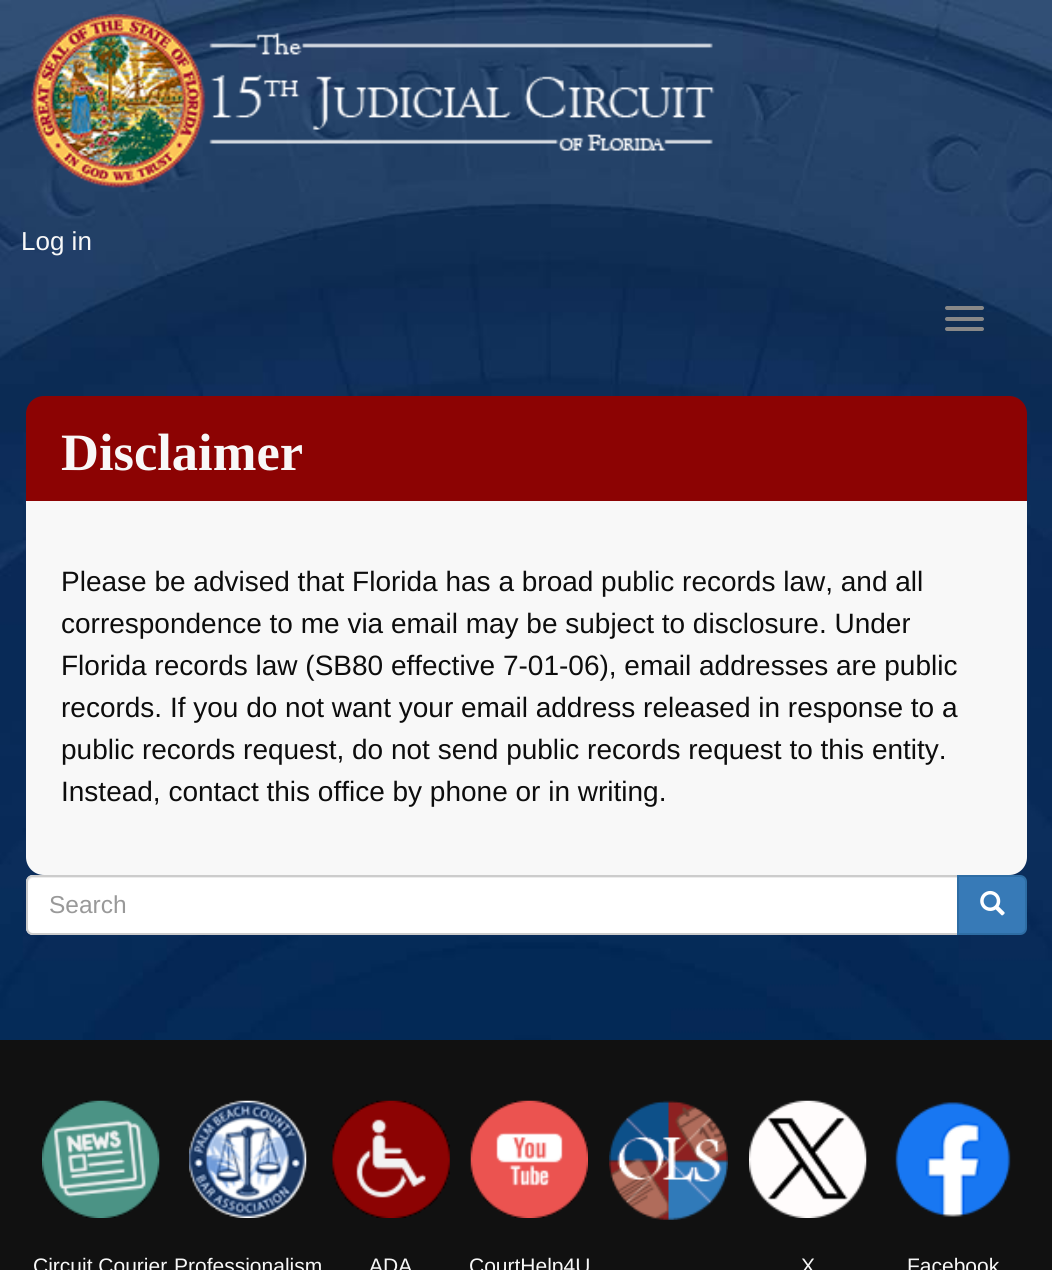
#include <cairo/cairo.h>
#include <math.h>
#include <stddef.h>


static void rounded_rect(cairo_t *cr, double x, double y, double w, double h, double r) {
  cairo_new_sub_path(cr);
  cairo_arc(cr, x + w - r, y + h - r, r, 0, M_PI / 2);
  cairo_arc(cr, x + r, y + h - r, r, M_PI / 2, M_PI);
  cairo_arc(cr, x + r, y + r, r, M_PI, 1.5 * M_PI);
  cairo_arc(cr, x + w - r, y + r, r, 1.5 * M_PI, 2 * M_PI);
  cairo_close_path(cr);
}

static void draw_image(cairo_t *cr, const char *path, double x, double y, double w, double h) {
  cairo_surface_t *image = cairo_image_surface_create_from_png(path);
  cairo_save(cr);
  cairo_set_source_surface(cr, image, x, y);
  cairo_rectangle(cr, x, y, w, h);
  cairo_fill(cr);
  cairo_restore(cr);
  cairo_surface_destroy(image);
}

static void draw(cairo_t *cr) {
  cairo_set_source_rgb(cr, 1, 1, 1);
  cairo_paint(cr);
  draw_image(cr, "images/1.png", 0, 0, 1052, 1040);
  draw_image(cr, "images/2.png", 31, 14, 684, 174);
  cairo_set_source_rgb(cr, 136 / 255.0, 136 / 255.0, 136 / 255.0);
  rounded_rect(cr, 945, 306, 39, 4, 2);
  cairo_fill(cr);
  rounded_rect(cr, 945, 317, 39, 4, 2);
  cairo_fill(cr);
  rounded_rect(cr, 945, 327, 39, 4, 2);
  cairo_fill(cr);
  cairo_set_source_rgb(cr, 140 / 255.0, 3 / 255.0, 3 / 255.0);
  cairo_new_path(cr);
  cairo_move_to(cr, 44, 396);
  cairo_line_to(cr, 1009, 396);
  cairo_curve_to(cr, 1019, 396, 1027, 404, 1027, 414);
  cairo_line_to(cr, 1027, 501);
  cairo_line_to(cr, 26, 501);
  cairo_line_to(cr, 26, 414);
  cairo_curve_to(cr, 26, 404, 34, 396, 44, 396);
  cairo_close_path(cr);
  cairo_fill(cr);
  cairo_set_source_rgb(cr, 248 / 255.0, 248 / 255.0, 248 / 255.0);
  cairo_new_path(cr);
  cairo_move_to(cr, 26, 501);
  cairo_line_to(cr, 1027, 501);
  cairo_line_to(cr, 1027, 857);
  cairo_curve_to(cr, 1027, 867, 1019, 875, 1009, 875);
  cairo_line_to(cr, 44, 875);
  cairo_curve_to(cr, 34, 875, 26, 867, 26, 857);
  cairo_close_path(cr);
  cairo_fill(cr);
  cairo_set_source_rgb(cr, 1, 1, 1);
  cairo_new_path(cr);
  cairo_move_to(cr, 33, 875);
  cairo_line_to(cr, 959, 875);
  cairo_line_to(cr, 959, 935);
  cairo_line_to(cr, 33, 935);
  cairo_curve_to(cr, 29, 935, 26, 932, 26, 928);
  cairo_line_to(cr, 26, 882);
  cairo_curve_to(cr, 26, 878, 29, 875, 33, 875);
  cairo_close_path(cr);
  cairo_fill(cr);
  cairo_set_source_rgb(cr, 236 / 255.0, 236 / 255.0, 236 / 255.0);
  cairo_new_path(cr);
  cairo_move_to(cr, 33, 878);
  cairo_line_to(cr, 957, 878);
  cairo_line_to(cr, 957, 877);
  cairo_line_to(cr, 33, 877);
  cairo_curve_to(cr, 29, 877, 28, 881, 28, 884);
  cairo_curve_to(cr, 28, 881, 30, 878, 33, 878);
  cairo_close_path(cr);
  cairo_fill(cr);
  cairo_new_path(cr);
  cairo_move_to(cr, 33, 876);
  cairo_line_to(cr, 958, 876);
  cairo_line_to(cr, 958, 934);
  cairo_line_to(cr, 33, 934);
  cairo_curve_to(cr, 29.5, 934, 27, 931.5, 27, 928);
  cairo_line_to(cr, 27, 882);
  cairo_curve_to(cr, 27, 878.5, 29.5, 876, 33, 876);
  cairo_close_path(cr);
  cairo_set_source_rgb(cr, 204 / 255.0, 204 / 255.0, 204 / 255.0);
  cairo_stroke(cr);
  cairo_set_source_rgb(cr, 55 / 255.0, 122 / 255.0, 183 / 255.0);
  cairo_new_path(cr);
  cairo_move_to(cr, 958, 876);
  cairo_line_to(cr, 1020, 876);
  cairo_curve_to(cr, 1023.5, 876, 1026, 878.5, 1026, 882);
  cairo_line_to(cr, 1026, 928);
  cairo_curve_to(cr, 1026, 931.5, 1023.5, 934, 1020, 934);
  cairo_line_to(cr, 958, 934);
  cairo_close_path(cr);
  cairo_fill_preserve(cr);
  cairo_set_source_rgb(cr, 46 / 255.0, 109 / 255.0, 164 / 255.0);
  cairo_stroke(cr);
  draw_image(cr, "images/3.png", 980, 890, 25, 26);
  cairo_set_source_rgb(cr, 17 / 255.0, 17 / 255.0, 17 / 255.0);
  cairo_rectangle(cr, 0, 1040, 1052, 230);
  cairo_fill(cr);
  draw_image(cr, "images/4.png", 609, 1100, 119, 120);
  draw_image(cr, "images/5.png", 42, 1100, 118, 118);
  draw_image(cr, "images/6.png", 189, 1100, 118, 118);
  draw_image(cr, "images/7.png", 332, 1100, 118, 118);
  draw_image(cr, "images/8.png", 470, 1100, 118, 118);
  draw_image(cr, "images/9.png", 749, 1100, 118, 118);
  draw_image(cr, "images/10.png", 895, 1102, 116, 115);
  cairo_select_font_face(cr, "Liberation Sans", CAIRO_FONT_SLANT_NORMAL, CAIRO_FONT_WEIGHT_NORMAL);
  cairo_set_font_size(cr, 26);
  cairo_set_source_rgb(cr, 248 / 255.0, 248 / 255.0, 248 / 255.0);
  cairo_move_to(cr, 21, 250);
  cairo_show_text(cr, "Log in");
  cairo_select_font_face(cr, "Liberation Serif", CAIRO_FONT_SLANT_NORMAL, CAIRO_FONT_WEIGHT_BOLD);
  cairo_set_font_size(cr, 52.5);
  cairo_move_to(cr, 61, 470);
  cairo_show_text(cr, "Disclaimer");
  cairo_select_font_face(cr, "Liberation Sans", CAIRO_FONT_SLANT_NORMAL, CAIRO_FONT_WEIGHT_NORMAL);
  cairo_set_font_size(cr, 28);
  cairo_set_source_rgb(cr, 13 / 255.0, 13 / 255.0, 13 / 255.0);
  cairo_move_to(cr, 61, 591);
  cairo_show_text(cr, "Please be advised that Florida has a broad public records law, and all");
  cairo_move_to(cr, 61, 633);
  cairo_show_text(cr, "correspondence to me via email may be subject to disclosure. Under");
  cairo_move_to(cr, 61, 675);
  cairo_show_text(cr, "Florida records law (SB80 effective 7-01-06), email addresses are public");
  cairo_move_to(cr, 61, 717);
  cairo_show_text(cr, "records. If you do not want your email address released in response to a");
  cairo_move_to(cr, 61, 759);
  cairo_show_text(cr, "public records request, do not send public records request to this entity.");
  cairo_move_to(cr, 61, 801);
  cairo_show_text(cr, "Instead, contact this office by phone or in writing.");
  cairo_set_font_size(cr, 24.5);
  cairo_set_source_rgb(cr, 153 / 255.0, 153 / 255.0, 153 / 255.0);
  cairo_move_to(cr, 49, 913);
  cairo_show_text(cr, "Search");
  cairo_set_font_size(cr, 21);
  cairo_set_source_rgb(cr, 248 / 255.0, 248 / 255.0, 248 / 255.0);
  cairo_move_to(cr, 33, 1273);
  cairo_show_text(cr, "Circuit Courier");
  cairo_move_to(cr, 174, 1273);
  cairo_show_text(cr, "Professionalism");
  cairo_move_to(cr, 369, 1273);
  cairo_show_text(cr, "ADA");
  cairo_move_to(cr, 469, 1273);
  cairo_show_text(cr, "CourtHelp4U");
  cairo_move_to(cr, 801, 1273);
  cairo_show_text(cr, "X");
  cairo_move_to(cr, 907, 1273);
  cairo_show_text(cr, "Facebook");
}

int main(void) {
  cairo_surface_t *surface = cairo_image_surface_create(CAIRO_FORMAT_RGB24, 1052, 1270);
  cairo_t *cr = cairo_create(surface);
  cairo_font_options_t *options = cairo_font_options_create();
  cairo_font_options_set_hint_metrics(options, CAIRO_HINT_METRICS_OFF);
  cairo_font_options_set_hint_style(options, CAIRO_HINT_STYLE_NONE);
  cairo_set_font_options(cr, options);
  cairo_set_miter_limit(cr, 4);
  draw(cr);
  cairo_surface_write_to_png(surface, "out.png");
  cairo_font_options_destroy(options);
  cairo_destroy(cr);
  cairo_surface_destroy(surface);
  return 0;
}
